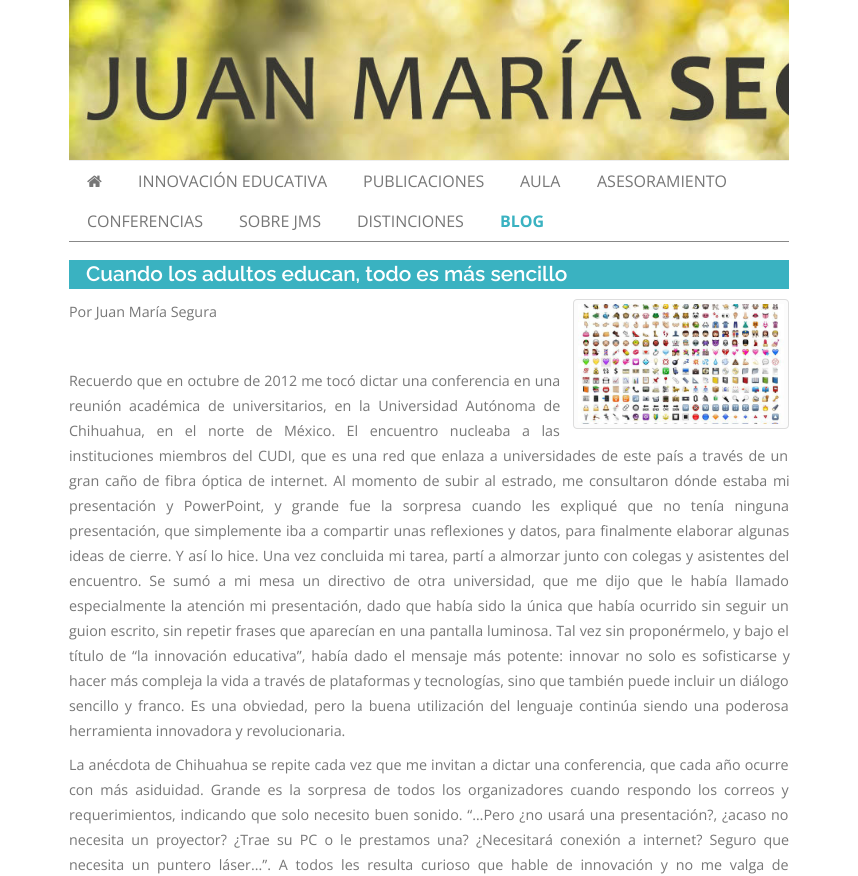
#include <cairo/cairo.h>
#include <math.h>
#include <stddef.h>


static void draw_spaced(cairo_t *cr, double x, double y, const char *s, double letter, double word) {
  cairo_move_to(cr, x, y);
  while (*s) {
    char ch[5] = {0};
    int n = 0;
    do ch[n++] = *s++; while ((*s & 0xC0) == 0x80);
    cairo_show_text(cr, ch);
    cairo_rel_move_to(cr, letter + word * (*ch == ' '), 0);
  }
}

static void rounded_rect(cairo_t *cr, double x, double y, double w, double h, double r) {
  cairo_new_sub_path(cr);
  cairo_arc(cr, x + w - r, y + h - r, r, 0, M_PI / 2);
  cairo_arc(cr, x + r, y + h - r, r, M_PI / 2, M_PI);
  cairo_arc(cr, x + r, y + r, r, M_PI, 1.5 * M_PI);
  cairo_arc(cr, x + w - r, y + r, r, 1.5 * M_PI, 2 * M_PI);
  cairo_close_path(cr);
}

static void draw_image(cairo_t *cr, const char *path, double x, double y, double w, double h) {
  cairo_surface_t *image = cairo_image_surface_create_from_png(path);
  cairo_save(cr);
  cairo_set_source_surface(cr, image, x, y);
  cairo_rectangle(cr, x, y, w, h);
  cairo_fill(cr);
  cairo_restore(cr);
  cairo_surface_destroy(image);
}

static void draw(cairo_t *cr) {
  cairo_set_source_rgb(cr, 1, 1, 1);
  cairo_paint(cr);
  draw_image(cr, "images/1.png", 69, 0, 720, 160);
  cairo_set_source_rgb(cr, 238 / 255.0, 238 / 255.0, 238 / 255.0);
  cairo_rectangle(cr, 69, 160, 720, 1);
  cairo_fill(cr);
  cairo_set_source_rgb(cr, 136 / 255.0, 136 / 255.0, 136 / 255.0);
  cairo_rectangle(cr, 69, 241, 720, 1);
  cairo_fill(cr);
  draw_image(cr, "images/2.png", 87, 175, 15, 12);
  cairo_set_source_rgb(cr, 58 / 255.0, 178 / 255.0, 193 / 255.0);
  cairo_rectangle(cr, 69, 260, 720, 29);
  cairo_fill(cr);
  cairo_set_source_rgb(cr, 252 / 255.0, 252 / 255.0, 252 / 255.0);
  rounded_rect(cr, 573.5, 299.5, 215, 129, 3.5);
  cairo_fill_preserve(cr);
  cairo_set_source_rgb(cr, 221 / 255.0, 221 / 255.0, 221 / 255.0);
  cairo_set_line_width(cr, 1);
  cairo_stroke(cr);
  draw_image(cr, "images/3.png", 578, 304, 206, 120);
  cairo_select_font_face(cr, "Open Sans", CAIRO_FONT_SLANT_NORMAL, CAIRO_FONT_WEIGHT_NORMAL);
  cairo_set_font_size(cr, 16);
  cairo_set_source_rgb(cr, 119 / 255.0, 119 / 255.0, 119 / 255.0);
  cairo_move_to(cr, 138, 187);
  cairo_show_text(cr, "INNOVACIÓN EDUCATIVA");
  cairo_move_to(cr, 363, 187);
  cairo_show_text(cr, "PUBLICACIONES");
  cairo_move_to(cr, 520, 187);
  cairo_show_text(cr, "AULA");
  cairo_move_to(cr, 597, 187);
  cairo_show_text(cr, "ASESORAMIENTO");
  cairo_move_to(cr, 87, 227);
  cairo_show_text(cr, "CONFERENCIAS");
  cairo_move_to(cr, 239, 227);
  cairo_show_text(cr, "SOBRE JMS");
  cairo_move_to(cr, 357, 227);
  cairo_show_text(cr, "DISTINCIONES");
  cairo_select_font_face(cr, "Open Sans", CAIRO_FONT_SLANT_NORMAL, CAIRO_FONT_WEIGHT_BOLD);
  cairo_set_source_rgb(cr, 58 / 255.0, 178 / 255.0, 193 / 255.0);
  cairo_move_to(cr, 500, 227);
  cairo_show_text(cr, "BLOG");
  cairo_select_font_face(cr, "Raleway SemiBold", CAIRO_FONT_SLANT_NORMAL, CAIRO_FONT_WEIGHT_NORMAL);
  cairo_set_font_size(cr, 20.8);
  cairo_set_source_rgb(cr, 1, 1, 1);
  cairo_move_to(cr, 86, 281);
  cairo_show_text(cr, "Cuando los adultos educan, todo es más sencillo");
  cairo_select_font_face(cr, "Open Sans", CAIRO_FONT_SLANT_NORMAL, CAIRO_FONT_WEIGHT_NORMAL);
  cairo_set_font_size(cr, 14.3);
  cairo_set_source_rgb(cr, 119 / 255.0, 119 / 255.0, 119 / 255.0);
  cairo_move_to(cr, 69, 317);
  cairo_show_text(cr, "Por Juan María Segura");
  draw_spaced(cr, 69, 386, "Recuerdo que en octubre de 2012 me tocó dictar una conferencia en una", 0, 0.4);
  draw_spaced(cr, 69, 411, "reunión académica de universitarios, en la Universidad Autónoma de", 0, 4);
  draw_spaced(cr, 69, 436, "Chihuahua, en el norte de México. El encuentro nucleaba a las", 0, 7.75);
  draw_spaced(cr, 69, 461, "instituciones miembros del CUDI, que es una red que enlaza a universidades de este país a través de un", 0, 1.6);
  draw_spaced(cr, 69, 486, "gran caño de fibra óptica de internet. Al momento de subir al estrado, me consultaron dónde estaba mi", 0, 1.9);
  draw_spaced(cr, 69, 511, "presentación y PowerPoint, y grande fue la sorpresa cuando les expliqué que no tenía ninguna", 0, 6.5);
  draw_spaced(cr, 69, 536, "presentación, que simplemente iba a compartir unas reflexiones y datos, para finalmente elaborar algunas", 0, 0.75);
  draw_spaced(cr, 69, 561, "ideas de cierre. Y así lo hice. Una vez concluida mi tarea, partí a almorzar junto con colegas y asistentes del", 0, 0.6);
  draw_spaced(cr, 69, 586, "encuentro. Se sumó a mi mesa un directivo de otra universidad, que me dijo que le había llamado", 0, 4.1);
  draw_spaced(cr, 69, 611, "especialmente la atención mi presentación, dado que había sido la única que había ocurrido sin seguir un", 0, 1.1);
  draw_spaced(cr, 69, 636, "guion escrito, sin repetir frases que aparecían en una pantalla luminosa. Tal vez sin proponérmelo, y bajo el", 0, 0.3);
  draw_spaced(cr, 69, 661, "título de “la innovación educativa”, había dado el mensaje más potente: innovar no solo es sofisticarse y", 0, 2);
  cairo_move_to(cr, 69, 686);
  cairo_show_text(cr, "hacer más compleja la vida a través de plataformas y tecnologías, sino que también puede incluir un diálogo");
  draw_spaced(cr, 69, 711, "sencillo y franco. Es una obviedad, pero la buena utilización del lenguaje continúa siendo una poderosa", 0, 2.25);
  cairo_move_to(cr, 69, 736);
  cairo_show_text(cr, "herramienta innovadora y revolucionaria.");
  draw_spaced(cr, 69, 770, "La anécdota de Chihuahua se repite cada vez que me invitan a dictar una conferencia, que cada año ocurre", 0, 0.4);
  draw_spaced(cr, 69, 795, "con más asiduidad. Grande es la sorpresa de todos los organizadores cuando respondo los correos y", 0, 3.25);
  draw_spaced(cr, 69, 820, "requerimientos, indicando que solo necesito buen sonido. “…Pero ¿no usará una presentación?, ¿acaso no", 0, 1.1);
  draw_spaced(cr, 69, 845, "necesita un proyector? ¿Trae su PC o le prestamos una? ¿Necesitará conexión a internet? Seguro que", 0, 3.4);
  draw_spaced(cr, 69, 870, "necesita un puntero láser...”. A todos les resulta curioso que hable de innovación y no me valga de", 0, 4);
}

int main(void) {
  cairo_surface_t *surface = cairo_image_surface_create(CAIRO_FORMAT_RGB24, 858, 876);
  cairo_t *cr = cairo_create(surface);
  cairo_font_options_t *options = cairo_font_options_create();
  cairo_font_options_set_hint_metrics(options, CAIRO_HINT_METRICS_OFF);
  cairo_font_options_set_hint_style(options, CAIRO_HINT_STYLE_NONE);
  cairo_set_font_options(cr, options);
  cairo_set_miter_limit(cr, 4);
  draw(cr);
  cairo_surface_write_to_png(surface, "out.png");
  cairo_font_options_destroy(options);
  cairo_destroy(cr);
  cairo_surface_destroy(surface);
  return 0;
}
